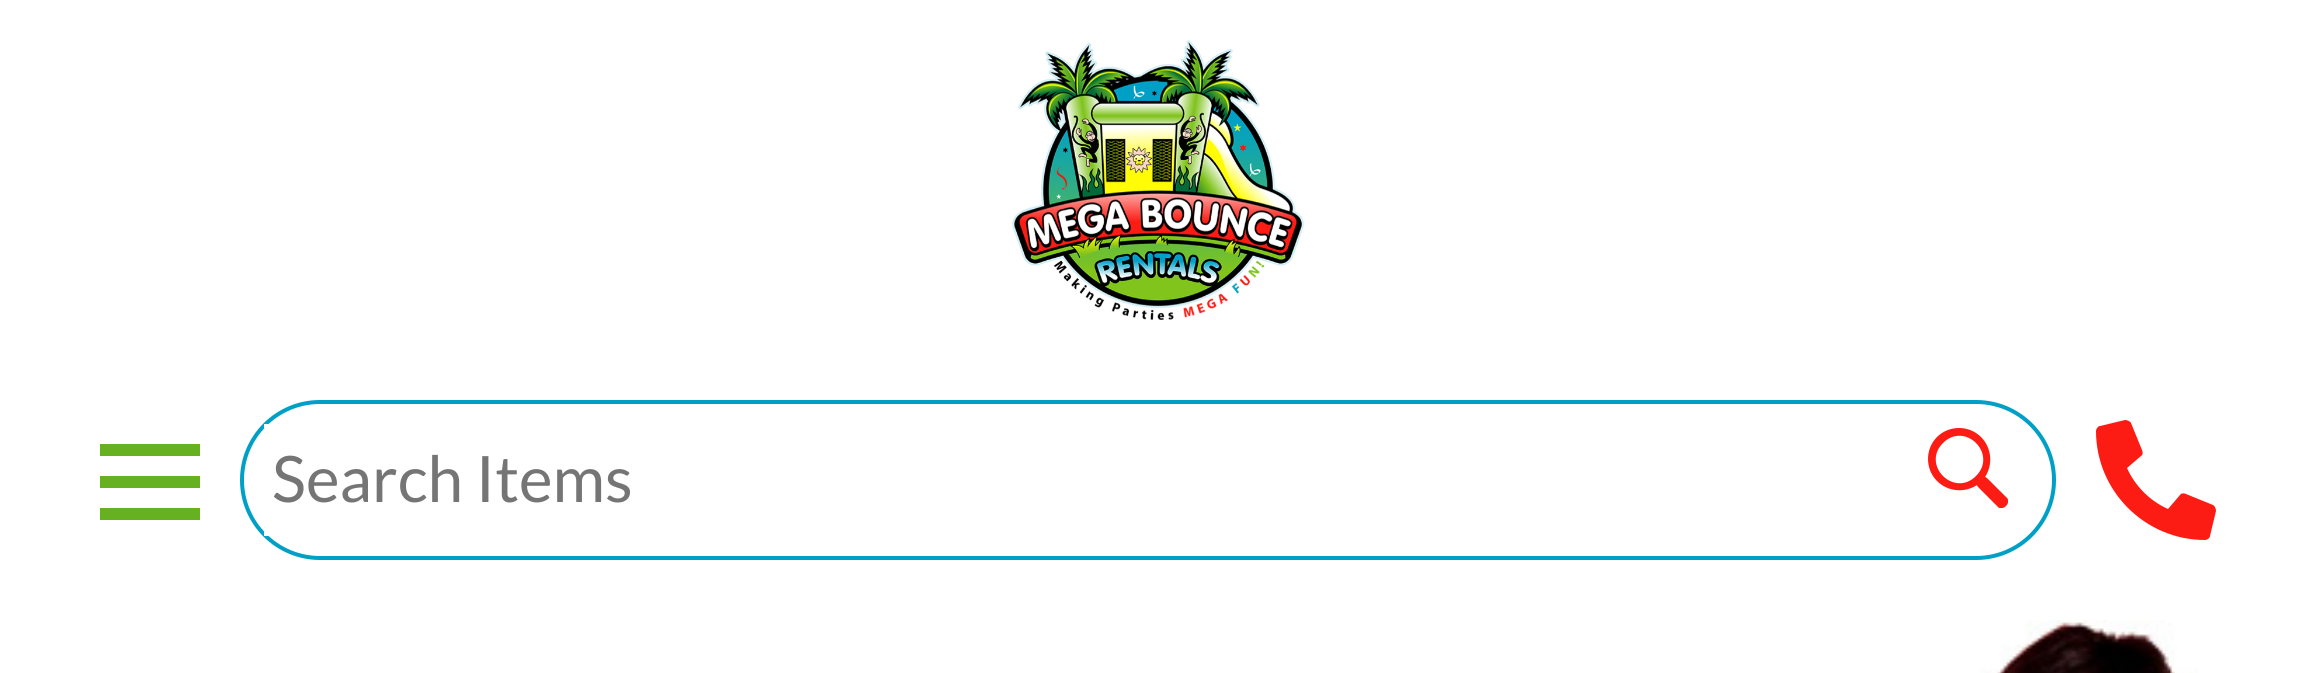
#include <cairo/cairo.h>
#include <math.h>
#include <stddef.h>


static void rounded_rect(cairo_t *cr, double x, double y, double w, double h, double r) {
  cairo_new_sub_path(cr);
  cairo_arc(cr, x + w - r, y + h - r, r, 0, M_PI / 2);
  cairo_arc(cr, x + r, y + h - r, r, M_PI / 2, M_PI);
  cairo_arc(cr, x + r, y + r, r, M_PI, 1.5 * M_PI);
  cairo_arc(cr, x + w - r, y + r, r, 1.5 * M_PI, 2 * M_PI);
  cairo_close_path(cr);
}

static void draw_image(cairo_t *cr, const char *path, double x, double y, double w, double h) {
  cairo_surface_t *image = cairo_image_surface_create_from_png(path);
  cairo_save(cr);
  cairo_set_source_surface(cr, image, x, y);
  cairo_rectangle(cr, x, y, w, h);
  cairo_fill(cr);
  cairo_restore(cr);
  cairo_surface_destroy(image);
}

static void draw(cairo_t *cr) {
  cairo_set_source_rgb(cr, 1, 1, 1);
  cairo_paint(cr);
  draw_image(cr, "images/1.png", 1012, 40, 292, 280);
  cairo_set_source_rgb(cr, 101 / 255.0, 177 / 255.0, 34 / 255.0);
  cairo_rectangle(cr, 100, 444, 100, 12);
  cairo_fill(cr);
  cairo_rectangle(cr, 100, 476, 100, 12);
  cairo_fill(cr);
  cairo_rectangle(cr, 100, 508, 100, 12);
  cairo_fill(cr);
  rounded_rect(cr, 242, 402, 1812, 156, 78);
  cairo_set_source_rgb(cr, 0, 160 / 255.0, 198 / 255.0);
  cairo_set_line_width(cr, 4);
  cairo_stroke(cr);
  cairo_set_source_rgb(cr, 1, 1, 1);
  cairo_rectangle(cr, 264, 424, 5, 112);
  cairo_fill(cr);
  cairo_save(cr);
  cairo_rectangle(cr, 1928, 428, 80, 80);
  cairo_clip(cr);
  cairo_set_source_rgb(cr, 253 / 255.0, 28 / 255.0, 20 / 255.0);
  cairo_new_path(cr);
  cairo_move_to(cr, 1981, 437);
  cairo_curve_to(cr, 1969, 425, 1949, 425, 1937, 437);
  cairo_curve_to(cr, 1925, 449, 1925, 469, 1937, 481);
  cairo_curve_to(cr, 1948, 492, 1965, 493, 1977, 485);
  cairo_curve_to(cr, 1977, 486, 1978, 487, 1979, 488);
  cairo_line_to(cr, 1997, 506);
  cairo_curve_to(cr, 1999, 509, 2003, 509, 2006, 506);
  cairo_curve_to(cr, 2009, 503, 2009, 499, 2006, 497);
  cairo_line_to(cr, 1988, 479);
  cairo_curve_to(cr, 1987, 478, 1986, 477, 1985, 477);
  cairo_curve_to(cr, 1993, 465, 1992, 448, 1981, 437);
  cairo_close_path(cr);
  cairo_move_to(cr, 1976, 476);
  cairo_curve_to(cr, 1954, 498, 1921, 465, 1943, 443);
  cairo_curve_to(cr, 1965, 421, 1998, 454, 1976, 476);
  cairo_close_path(cr);
  cairo_fill(cr);
  cairo_restore(cr);
  cairo_set_source_rgb(cr, 253 / 255.0, 28 / 255.0, 20 / 255.0);
  cairo_new_path(cr);
  cairo_move_to(cr, 2213, 505);
  cairo_line_to(cr, 2186, 494);
  cairo_curve_to(cr, 2184, 493, 2181, 493, 2180, 495);
  cairo_line_to(cr, 2168, 509);
  cairo_curve_to(cr, 2150, 501, 2135, 486, 2127, 468);
  cairo_line_to(cr, 2141, 456);
  cairo_curve_to(cr, 2143, 455, 2143, 452, 2142, 450);
  cairo_line_to(cr, 2131, 423);
  cairo_curve_to(cr, 2130, 421, 2127, 420, 2125, 420);
  cairo_line_to(cr, 2100, 426);
  cairo_curve_to(cr, 2098, 426, 2096, 429, 2096, 431);
  cairo_curve_to(cr, 2096, 491, 2145, 540, 2205, 540);
  cairo_curve_to(cr, 2207, 540, 2210, 538, 2210, 536);
  cairo_line_to(cr, 2216, 511);
  cairo_curve_to(cr, 2216, 509, 2215, 506, 2213, 505);
  cairo_close_path(cr);
  cairo_fill(cr);
  draw_image(cr, "images/2.png", 1980, 620, 218, 53);
  cairo_select_font_face(cr, "Lato", CAIRO_FONT_SLANT_NORMAL, CAIRO_FONT_WEIGHT_NORMAL);
  cairo_set_font_size(cr, 64);
  cairo_set_source_rgb(cr, 117 / 255.0, 117 / 255.0, 117 / 255.0);
  cairo_move_to(cr, 272, 502);
  cairo_show_text(cr, "Search Items");
}

int main(void) {
  cairo_surface_t *surface = cairo_image_surface_create(CAIRO_FORMAT_RGB24, 2315, 673);
  cairo_t *cr = cairo_create(surface);
  cairo_font_options_t *options = cairo_font_options_create();
  cairo_font_options_set_hint_metrics(options, CAIRO_HINT_METRICS_OFF);
  cairo_font_options_set_hint_style(options, CAIRO_HINT_STYLE_NONE);
  cairo_set_font_options(cr, options);
  cairo_set_miter_limit(cr, 4);
  draw(cr);
  cairo_surface_write_to_png(surface, "out.png");
  cairo_font_options_destroy(options);
  cairo_destroy(cr);
  cairo_surface_destroy(surface);
  return 0;
}
